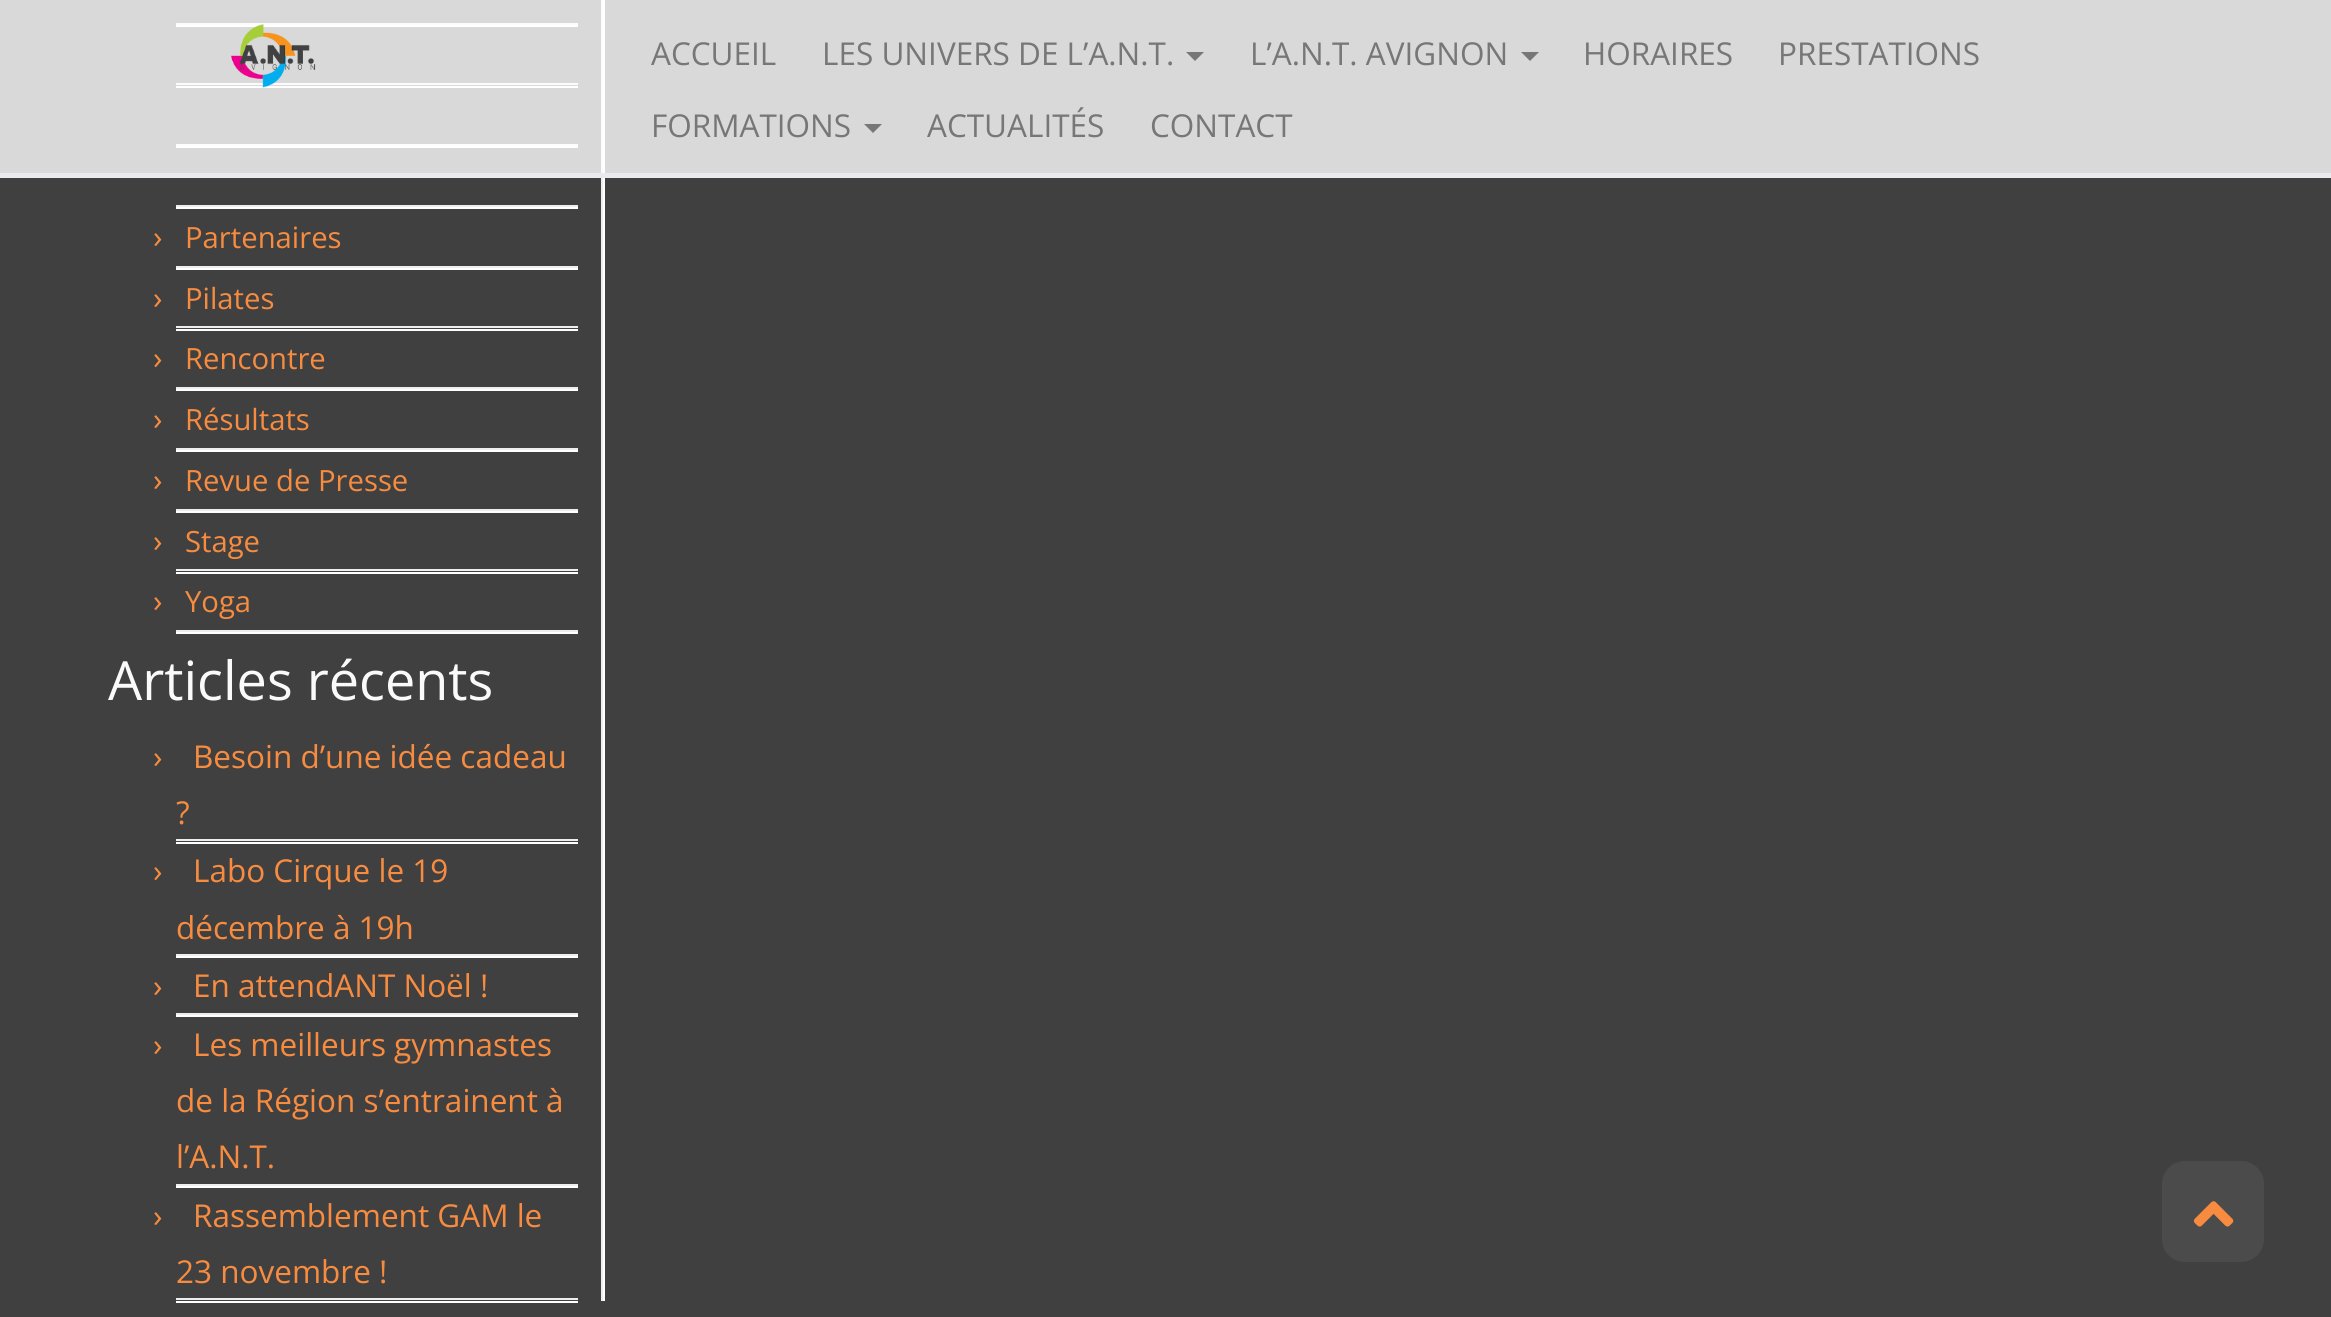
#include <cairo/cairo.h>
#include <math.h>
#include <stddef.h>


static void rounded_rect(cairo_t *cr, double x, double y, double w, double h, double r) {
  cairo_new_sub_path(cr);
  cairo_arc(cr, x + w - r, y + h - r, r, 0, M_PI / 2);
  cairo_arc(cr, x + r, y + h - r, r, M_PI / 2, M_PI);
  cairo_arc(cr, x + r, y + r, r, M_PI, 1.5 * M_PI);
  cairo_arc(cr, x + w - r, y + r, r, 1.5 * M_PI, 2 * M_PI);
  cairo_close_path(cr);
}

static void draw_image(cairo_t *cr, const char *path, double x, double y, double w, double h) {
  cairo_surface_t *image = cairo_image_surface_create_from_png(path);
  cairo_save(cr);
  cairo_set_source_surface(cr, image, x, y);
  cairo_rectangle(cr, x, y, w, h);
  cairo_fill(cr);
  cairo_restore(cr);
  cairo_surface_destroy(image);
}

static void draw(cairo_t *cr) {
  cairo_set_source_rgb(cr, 64 / 255.0, 64 / 255.0, 64 / 255.0);
  cairo_paint(cr);
  cairo_set_source_rgb(cr, 238 / 255.0, 238 / 255.0, 238 / 255.0);
  cairo_rectangle(cr, 601, 0, 2, 1301);
  cairo_fill(cr);
  cairo_rectangle(cr, 176, 23, 402, 2);
  cairo_fill(cr);
  cairo_set_source_rgb(cr, 1, 1, 1);
  cairo_rectangle(cr, 176, 25, 402, 2);
  cairo_fill(cr);
  cairo_set_source_rgb(cr, 238 / 255.0, 238 / 255.0, 238 / 255.0);
  cairo_rectangle(cr, 176, 83, 402, 2);
  cairo_fill(cr);
  cairo_set_source_rgb(cr, 1, 1, 1);
  cairo_rectangle(cr, 176, 86, 402, 2);
  cairo_fill(cr);
  cairo_set_source_rgb(cr, 238 / 255.0, 238 / 255.0, 238 / 255.0);
  cairo_rectangle(cr, 176, 144, 402, 2);
  cairo_fill(cr);
  cairo_set_source_rgb(cr, 1, 1, 1);
  cairo_rectangle(cr, 176, 146, 402, 2);
  cairo_fill(cr);
  cairo_rectangle(cr, 603, 0, 2, 1301);
  cairo_fill(cr);
  cairo_set_source_rgba(cr, 1, 1, 1, 0.8);
  cairo_rectangle(cr, 0, 0, 2331, 173);
  cairo_fill(cr);
  cairo_set_source_rgb(cr, 233 / 255.0, 234 / 255.0, 238 / 255.0);
  cairo_rectangle(cr, 0, 173, 2331, 5);
  cairo_fill(cr);
  draw_image(cr, "images/1.png", 230, 24, 86, 64);
  cairo_set_source_rgb(cr, 119 / 255.0, 119 / 255.0, 119 / 255.0);
  cairo_new_path(cr);
  cairo_move_to(cr, 1186, 52);
  cairo_line_to(cr, 1204, 52);
  cairo_line_to(cr, 1195, 61);
  cairo_close_path(cr);
  cairo_fill(cr);
  cairo_new_path(cr);
  cairo_move_to(cr, 1521, 52);
  cairo_line_to(cr, 1539, 52);
  cairo_line_to(cr, 1530, 61);
  cairo_close_path(cr);
  cairo_fill(cr);
  cairo_new_path(cr);
  cairo_move_to(cr, 864, 124);
  cairo_line_to(cr, 882, 124);
  cairo_line_to(cr, 873, 133);
  cairo_close_path(cr);
  cairo_fill(cr);
  cairo_set_source_rgb(cr, 238 / 255.0, 238 / 255.0, 238 / 255.0);
  cairo_rectangle(cr, 176, 205, 402, 2);
  cairo_fill(cr);
  cairo_set_source_rgb(cr, 1, 1, 1);
  cairo_rectangle(cr, 176, 207, 402, 2);
  cairo_fill(cr);
  cairo_set_source_rgb(cr, 238 / 255.0, 238 / 255.0, 238 / 255.0);
  cairo_rectangle(cr, 176, 266, 402, 2);
  cairo_fill(cr);
  cairo_set_source_rgb(cr, 1, 1, 1);
  cairo_rectangle(cr, 176, 268, 402, 2);
  cairo_fill(cr);
  cairo_set_source_rgb(cr, 238 / 255.0, 238 / 255.0, 238 / 255.0);
  cairo_rectangle(cr, 176, 326, 402, 2);
  cairo_fill(cr);
  cairo_set_source_rgb(cr, 1, 1, 1);
  cairo_rectangle(cr, 176, 329, 402, 2);
  cairo_fill(cr);
  cairo_set_source_rgb(cr, 238 / 255.0, 238 / 255.0, 238 / 255.0);
  cairo_rectangle(cr, 176, 387, 402, 2);
  cairo_fill(cr);
  cairo_set_source_rgb(cr, 1, 1, 1);
  cairo_rectangle(cr, 176, 389, 402, 2);
  cairo_fill(cr);
  cairo_set_source_rgb(cr, 238 / 255.0, 238 / 255.0, 238 / 255.0);
  cairo_rectangle(cr, 176, 448, 402, 2);
  cairo_fill(cr);
  cairo_set_source_rgb(cr, 1, 1, 1);
  cairo_rectangle(cr, 176, 450, 402, 2);
  cairo_fill(cr);
  cairo_set_source_rgb(cr, 238 / 255.0, 238 / 255.0, 238 / 255.0);
  cairo_rectangle(cr, 176, 509, 402, 2);
  cairo_fill(cr);
  cairo_set_source_rgb(cr, 1, 1, 1);
  cairo_rectangle(cr, 176, 511, 402, 2);
  cairo_fill(cr);
  cairo_set_source_rgb(cr, 238 / 255.0, 238 / 255.0, 238 / 255.0);
  cairo_rectangle(cr, 176, 569, 402, 2);
  cairo_fill(cr);
  cairo_set_source_rgb(cr, 1, 1, 1);
  cairo_rectangle(cr, 176, 572, 402, 2);
  cairo_fill(cr);
  cairo_set_source_rgb(cr, 238 / 255.0, 238 / 255.0, 238 / 255.0);
  cairo_rectangle(cr, 176, 630, 402, 2);
  cairo_fill(cr);
  cairo_set_source_rgb(cr, 1, 1, 1);
  cairo_rectangle(cr, 176, 632, 402, 2);
  cairo_fill(cr);
  cairo_set_source_rgb(cr, 238 / 255.0, 238 / 255.0, 238 / 255.0);
  cairo_rectangle(cr, 176, 839, 402, 2);
  cairo_fill(cr);
  cairo_set_source_rgb(cr, 1, 1, 1);
  cairo_rectangle(cr, 176, 842, 402, 2);
  cairo_fill(cr);
  cairo_set_source_rgb(cr, 238 / 255.0, 238 / 255.0, 238 / 255.0);
  cairo_rectangle(cr, 176, 954, 402, 2);
  cairo_fill(cr);
  cairo_set_source_rgb(cr, 1, 1, 1);
  cairo_rectangle(cr, 176, 956, 402, 2);
  cairo_fill(cr);
  cairo_set_source_rgb(cr, 238 / 255.0, 238 / 255.0, 238 / 255.0);
  cairo_rectangle(cr, 176, 1013, 402, 2);
  cairo_fill(cr);
  cairo_set_source_rgb(cr, 1, 1, 1);
  cairo_rectangle(cr, 176, 1015, 402, 2);
  cairo_fill(cr);
  cairo_set_source_rgb(cr, 238 / 255.0, 238 / 255.0, 238 / 255.0);
  cairo_rectangle(cr, 176, 1184, 402, 2);
  cairo_fill(cr);
  cairo_set_source_rgb(cr, 1, 1, 1);
  cairo_rectangle(cr, 176, 1186, 402, 2);
  cairo_fill(cr);
  cairo_set_source_rgb(cr, 238 / 255.0, 238 / 255.0, 238 / 255.0);
  cairo_rectangle(cr, 176, 1298, 402, 2);
  cairo_fill(cr);
  cairo_set_source_rgb(cr, 1, 1, 1);
  cairo_rectangle(cr, 176, 1301, 402, 2);
  cairo_fill(cr);
  cairo_set_source_rgb(cr, 75 / 255.0, 75 / 255.0, 75 / 255.0);
  rounded_rect(cr, 2162, 1161, 102, 101, 23);
  cairo_fill(cr);
  draw_image(cr, "images/2.png", 2193, 1201, 41, 26);
  cairo_select_font_face(cr, "Open Sans", CAIRO_FONT_SLANT_NORMAL, CAIRO_FONT_WEIGHT_NORMAL);
  cairo_set_font_size(cr, 31.5);
  cairo_set_source_rgb(cr, 119 / 255.0, 119 / 255.0, 119 / 255.0);
  cairo_move_to(cr, 651, 65);
  cairo_show_text(cr, "ACCUEIL");
  cairo_move_to(cr, 822, 65);
  cairo_show_text(cr, "LES UNIVERS DE L’A.N.T.");
  cairo_move_to(cr, 1250, 65);
  cairo_show_text(cr, "L’A.N.T. AVIGNON");
  cairo_move_to(cr, 1583, 65);
  cairo_show_text(cr, "HORAIRES");
  cairo_move_to(cr, 1778, 65);
  cairo_show_text(cr, "PRESTATIONS");
  cairo_move_to(cr, 651, 137);
  cairo_show_text(cr, "FORMATIONS");
  cairo_move_to(cr, 927, 137);
  cairo_show_text(cr, "ACTUALITÉS");
  cairo_move_to(cr, 1150, 137);
  cairo_show_text(cr, "CONTACT");
  cairo_set_source_rgb(cr, 247 / 255.0, 140 / 255.0, 64 / 255.0);
  cairo_move_to(cr, 153, 248);
  cairo_show_text(cr, "›");
  cairo_set_font_size(cr, 29.25);
  cairo_move_to(cr, 185, 248);
  cairo_show_text(cr, "Partenaires");
  cairo_set_font_size(cr, 31.5);
  cairo_move_to(cr, 153, 309);
  cairo_show_text(cr, "›");
  cairo_set_font_size(cr, 29.25);
  cairo_move_to(cr, 185, 309);
  cairo_show_text(cr, "Pilates");
  cairo_set_font_size(cr, 31.5);
  cairo_move_to(cr, 153, 369);
  cairo_show_text(cr, "›");
  cairo_set_font_size(cr, 29.25);
  cairo_move_to(cr, 185, 369);
  cairo_show_text(cr, "Rencontre");
  cairo_set_font_size(cr, 31.5);
  cairo_move_to(cr, 153, 430);
  cairo_show_text(cr, "›");
  cairo_set_font_size(cr, 29.25);
  cairo_move_to(cr, 185, 430);
  cairo_show_text(cr, "Résultats");
  cairo_set_font_size(cr, 31.5);
  cairo_move_to(cr, 153, 491);
  cairo_show_text(cr, "›");
  cairo_set_font_size(cr, 29.25);
  cairo_move_to(cr, 185, 491);
  cairo_show_text(cr, "Revue de Presse");
  cairo_set_font_size(cr, 31.5);
  cairo_move_to(cr, 153, 552);
  cairo_show_text(cr, "›");
  cairo_set_font_size(cr, 29.25);
  cairo_move_to(cr, 185, 552);
  cairo_show_text(cr, "Stage");
  cairo_set_font_size(cr, 31.5);
  cairo_move_to(cr, 153, 612);
  cairo_show_text(cr, "›");
  cairo_set_font_size(cr, 29.25);
  cairo_move_to(cr, 185, 612);
  cairo_show_text(cr, "Yoga");
  cairo_set_font_size(cr, 54);
  cairo_set_source_rgb(cr, 250 / 255.0, 250 / 255.0, 250 / 255.0);
  cairo_move_to(cr, 108, 700);
  cairo_show_text(cr, "Articles récents");
  cairo_set_font_size(cr, 31.5);
  cairo_set_source_rgb(cr, 247 / 255.0, 140 / 255.0, 64 / 255.0);
  cairo_move_to(cr, 153, 768);
  cairo_show_text(cr, "›");
  cairo_move_to(cr, 193, 768);
  cairo_show_text(cr, "Besoin d’une idée cadeau");
  cairo_move_to(cr, 176, 824);
  cairo_show_text(cr, "?");
  cairo_move_to(cr, 153, 882);
  cairo_show_text(cr, "›");
  cairo_move_to(cr, 193, 882);
  cairo_show_text(cr, "Labo Cirque le 19");
  cairo_move_to(cr, 176, 939);
  cairo_show_text(cr, "décembre à 19h");
  cairo_move_to(cr, 153, 997);
  cairo_show_text(cr, "›");
  cairo_move_to(cr, 193, 997);
  cairo_show_text(cr, "En attendANT Noël !");
  cairo_move_to(cr, 153, 1056);
  cairo_show_text(cr, "›");
  cairo_move_to(cr, 193, 1056);
  cairo_show_text(cr, "Les meilleurs gymnastes");
  cairo_move_to(cr, 176, 1112);
  cairo_show_text(cr, "de la Région s’entrainent à");
  cairo_move_to(cr, 176, 1168);
  cairo_show_text(cr, "l’A.N.T.");
  cairo_move_to(cr, 153, 1227);
  cairo_show_text(cr, "›");
  cairo_move_to(cr, 193, 1227);
  cairo_show_text(cr, "Rassemblement GAM le");
  cairo_move_to(cr, 176, 1283);
  cairo_show_text(cr, "23 novembre !");
}

int main(void) {
  cairo_surface_t *surface = cairo_image_surface_create(CAIRO_FORMAT_RGB24, 2331, 1317);
  cairo_t *cr = cairo_create(surface);
  cairo_font_options_t *options = cairo_font_options_create();
  cairo_font_options_set_hint_metrics(options, CAIRO_HINT_METRICS_OFF);
  cairo_font_options_set_hint_style(options, CAIRO_HINT_STYLE_NONE);
  cairo_set_font_options(cr, options);
  cairo_set_miter_limit(cr, 4);
  draw(cr);
  cairo_surface_write_to_png(surface, "out.png");
  cairo_font_options_destroy(options);
  cairo_destroy(cr);
  cairo_surface_destroy(surface);
  return 0;
}
